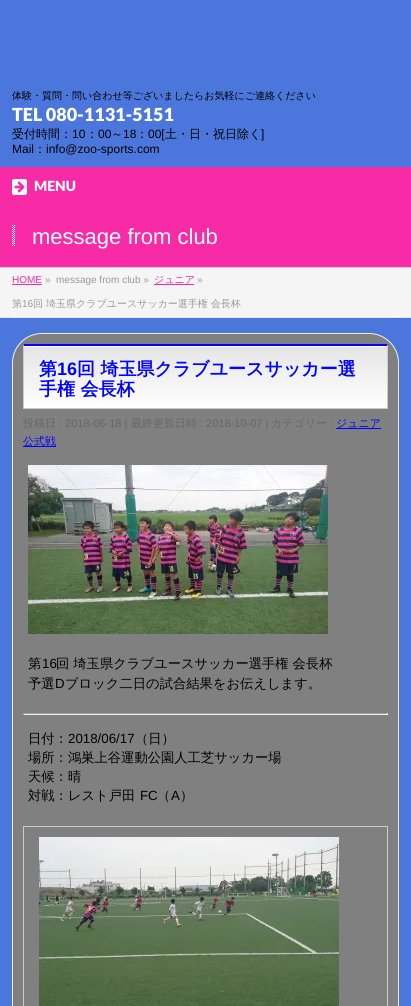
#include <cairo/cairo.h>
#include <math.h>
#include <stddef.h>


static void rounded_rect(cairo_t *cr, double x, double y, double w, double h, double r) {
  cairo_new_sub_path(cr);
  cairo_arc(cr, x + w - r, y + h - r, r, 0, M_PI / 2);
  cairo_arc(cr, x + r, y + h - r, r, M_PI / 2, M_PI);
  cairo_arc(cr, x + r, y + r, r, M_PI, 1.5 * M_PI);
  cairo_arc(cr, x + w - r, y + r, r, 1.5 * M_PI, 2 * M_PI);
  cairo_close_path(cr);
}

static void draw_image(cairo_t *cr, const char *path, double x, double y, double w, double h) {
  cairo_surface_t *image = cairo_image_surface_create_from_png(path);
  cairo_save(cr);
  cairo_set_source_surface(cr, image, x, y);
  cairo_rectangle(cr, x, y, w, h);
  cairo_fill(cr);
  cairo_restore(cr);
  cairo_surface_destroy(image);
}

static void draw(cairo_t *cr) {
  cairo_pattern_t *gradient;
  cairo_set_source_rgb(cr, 75 / 255.0, 119 / 255.0, 221 / 255.0);
  cairo_paint(cr);
  cairo_set_source_rgb(cr, 249 / 255.0, 42 / 255.0, 166 / 255.0);
  cairo_rectangle(cr, 0, 167, 411, 37);
  cairo_fill(cr);
  draw_image(cr, "images/1.png", 12, 179, 15, 16);
  cairo_rectangle(cr, 0, 204, 411, 63);
  cairo_fill(cr);
  cairo_set_source_rgb(cr, 204 / 255.0, 204 / 255.0, 204 / 255.0);
  cairo_rectangle(cr, 0, 267, 411, 1);
  cairo_fill(cr);
  draw_image(cr, "images/2.png", 12, 225, 3, 21);
  cairo_set_source_rgb(cr, 245 / 255.0, 245 / 255.0, 245 / 255.0);
  cairo_rectangle(cr, 0, 268, 411, 49);
  cairo_fill(cr);
  cairo_set_source_rgb(cr, 229 / 255.0, 229 / 255.0, 229 / 255.0);
  cairo_rectangle(cr, 0, 317, 411, 1);
  cairo_fill(cr);
  cairo_set_source_rgb(cr, 1, 1, 1);
  cairo_rectangle(cr, 12, 316, 387, 1);
  cairo_fill(cr);
  cairo_set_source_rgb(cr, 249 / 255.0, 42 / 255.0, 166 / 255.0);
  cairo_rectangle(cr, 12, 284, 30, 1);
  cairo_fill(cr);
  cairo_rectangle(cr, 154, 284, 40, 1);
  cairo_fill(cr);
  cairo_set_source_rgb(cr, 128 / 255.0, 128 / 255.0, 128 / 255.0);
  rounded_rect(cr, 12.5, 333.5, 386, 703, 29.5);
  cairo_fill_preserve(cr);
  cairo_set_source_rgb(cr, 238 / 255.0, 238 / 255.0, 238 / 255.0);
  cairo_set_line_width(cr, 1);
  cairo_stroke(cr);
  gradient = cairo_pattern_create_linear(24, 346, 24, 408);
  cairo_pattern_add_color_stop_rgba(gradient, 0, 229 / 255.0, 229 / 255.0, 229 / 255.0, 1);
  cairo_pattern_add_color_stop_rgba(gradient, 1, 1, 1, 1, 1);
  cairo_set_source(cr, gradient);
  cairo_pattern_destroy(gradient);
  cairo_rectangle(cr, 24, 347, 363, 61);
  cairo_fill(cr);
  cairo_set_source_rgb(cr, 1, 1, 1);
  cairo_rectangle(cr, 24, 346, 363, 1);
  cairo_fill(cr);
  cairo_set_source_rgb(cr, 0, 4 / 255.0, 250 / 255.0);
  cairo_new_path(cr);
  cairo_move_to(cr, 23, 344);
  cairo_line_to(cr, 388, 344);
  cairo_line_to(cr, 387, 346);
  cairo_line_to(cr, 24, 346);
  cairo_close_path(cr);
  cairo_fill(cr);
  cairo_set_source_rgb(cr, 204 / 255.0, 204 / 255.0, 204 / 255.0);
  cairo_new_path(cr);
  cairo_move_to(cr, 388, 344);
  cairo_line_to(cr, 388, 409);
  cairo_line_to(cr, 387, 408);
  cairo_line_to(cr, 387, 346);
  cairo_close_path(cr);
  cairo_fill(cr);
  cairo_rectangle(cr, 23, 408, 365, 1);
  cairo_fill(cr);
  cairo_new_path(cr);
  cairo_move_to(cr, 23, 409);
  cairo_line_to(cr, 23, 344);
  cairo_line_to(cr, 24, 346);
  cairo_line_to(cr, 24, 408);
  cairo_close_path(cr);
  cairo_fill(cr);
  cairo_set_source_rgb(cr, 0, 4 / 255.0, 1);
  cairo_rectangle(cr, 336, 428, 45, 1);
  cairo_fill(cr);
  cairo_rectangle(cr, 23, 446, 33, 1);
  cairo_fill(cr);
  draw_image(cr, "images/3.png", 28, 465, 300, 169);
  cairo_set_source_rgb(cr, 159 / 255.0, 159 / 255.0, 159 / 255.0);
  cairo_rectangle(cr, 23, 713, 365, 1);
  cairo_fill(cr);
  cairo_set_source_rgb(cr, 238 / 255.0, 238 / 255.0, 238 / 255.0);
  cairo_rectangle(cr, 387, 713, 1, 2);
  cairo_fill(cr);
  cairo_rectangle(cr, 23, 714, 365, 1);
  cairo_fill(cr);
  cairo_set_source_rgb(cr, 159 / 255.0, 159 / 255.0, 159 / 255.0);
  cairo_rectangle(cr, 23, 713, 1, 2);
  cairo_fill(cr);
  cairo_set_source_rgb(cr, 204 / 255.0, 204 / 255.0, 204 / 255.0);
  cairo_rectangle(cr, 23, 826, 365, 1);
  cairo_fill(cr);
  cairo_rectangle(cr, 387, 826, 1, 180);
  cairo_fill(cr);
  cairo_rectangle(cr, 23, 826, 1, 180);
  cairo_fill(cr);
  draw_image(cr, "images/4.png", 39, 837, 300, 169);
  cairo_select_font_face(cr, "WenQuanYi Zen Hei Medium", CAIRO_FONT_SLANT_NORMAL, CAIRO_FONT_WEIGHT_NORMAL);
  cairo_set_font_size(cr, 10);
  cairo_set_source_rgb(cr, 0, 0, 0);
  cairo_move_to(cr, 12, 99);
  cairo_show_text(cr, "体験・質問・問い合わせ等ございましたらお気軽にご連絡ください");
  cairo_select_font_face(cr, "Lato Black", CAIRO_FONT_SLANT_NORMAL, CAIRO_FONT_WEIGHT_NORMAL);
  cairo_set_font_size(cr, 18);
  cairo_set_source_rgb(cr, 1, 1, 1);
  cairo_move_to(cr, 12, 121);
  cairo_show_text(cr, "TEL 080-1131-5151");
  cairo_select_font_face(cr, "WenQuanYi Zen Hei Medium", CAIRO_FONT_SLANT_NORMAL, CAIRO_FONT_WEIGHT_NORMAL);
  cairo_set_font_size(cr, 12);
  cairo_set_source_rgb(cr, 0, 0, 0);
  cairo_move_to(cr, 12, 138);
  cairo_show_text(cr, "受付時間：");
  cairo_select_font_face(cr, "Liberation Sans", CAIRO_FONT_SLANT_NORMAL, CAIRO_FONT_WEIGHT_NORMAL);
  cairo_move_to(cr, 72, 138);
  cairo_show_text(cr, "10");
  cairo_select_font_face(cr, "WenQuanYi Zen Hei Medium", CAIRO_FONT_SLANT_NORMAL, CAIRO_FONT_WEIGHT_NORMAL);
  cairo_move_to(cr, 86, 138);
  cairo_show_text(cr, "：");
  cairo_select_font_face(cr, "Liberation Sans", CAIRO_FONT_SLANT_NORMAL, CAIRO_FONT_WEIGHT_NORMAL);
  cairo_move_to(cr, 98, 138);
  cairo_show_text(cr, "00");
  cairo_select_font_face(cr, "WenQuanYi Zen Hei Medium", CAIRO_FONT_SLANT_NORMAL, CAIRO_FONT_WEIGHT_NORMAL);
  cairo_move_to(cr, 111, 138);
  cairo_show_text(cr, "～");
  cairo_select_font_face(cr, "Liberation Sans", CAIRO_FONT_SLANT_NORMAL, CAIRO_FONT_WEIGHT_NORMAL);
  cairo_move_to(cr, 123, 138);
  cairo_show_text(cr, "18");
  cairo_select_font_face(cr, "WenQuanYi Zen Hei Medium", CAIRO_FONT_SLANT_NORMAL, CAIRO_FONT_WEIGHT_NORMAL);
  cairo_move_to(cr, 136, 138);
  cairo_show_text(cr, "：");
  cairo_select_font_face(cr, "Liberation Sans", CAIRO_FONT_SLANT_NORMAL, CAIRO_FONT_WEIGHT_NORMAL);
  cairo_move_to(cr, 148, 138);
  cairo_show_text(cr, "00[");
  cairo_select_font_face(cr, "WenQuanYi Zen Hei Medium", CAIRO_FONT_SLANT_NORMAL, CAIRO_FONT_WEIGHT_NORMAL);
  cairo_move_to(cr, 165, 138);
  cairo_show_text(cr, "土・日・祝日除く");
  cairo_select_font_face(cr, "Liberation Sans", CAIRO_FONT_SLANT_NORMAL, CAIRO_FONT_WEIGHT_NORMAL);
  cairo_move_to(cr, 261, 138);
  cairo_show_text(cr, "]");
  cairo_move_to(cr, 12, 153);
  cairo_show_text(cr, "Mail");
  cairo_select_font_face(cr, "WenQuanYi Zen Hei Medium", CAIRO_FONT_SLANT_NORMAL, CAIRO_FONT_WEIGHT_NORMAL);
  cairo_move_to(cr, 34, 153);
  cairo_show_text(cr, "：");
  cairo_select_font_face(cr, "Liberation Sans", CAIRO_FONT_SLANT_NORMAL, CAIRO_FONT_WEIGHT_NORMAL);
  cairo_move_to(cr, 46, 153);
  cairo_show_text(cr, "info@zoo-sports.com");
  cairo_select_font_face(cr, "Lato Black", CAIRO_FONT_SLANT_NORMAL, CAIRO_FONT_WEIGHT_NORMAL);
  cairo_set_font_size(cr, 14);
  cairo_set_source_rgb(cr, 1, 1, 1);
  cairo_move_to(cr, 34, 191);
  cairo_show_text(cr, "MENU");
  cairo_select_font_face(cr, "Liberation Sans", CAIRO_FONT_SLANT_NORMAL, CAIRO_FONT_WEIGHT_NORMAL);
  cairo_set_font_size(cr, 22);
  cairo_move_to(cr, 32, 244);
  cairo_show_text(cr, "message from club");
  cairo_set_font_size(cr, 10);
  cairo_set_source_rgb(cr, 249 / 255.0, 42 / 255.0, 166 / 255.0);
  cairo_move_to(cr, 12, 283);
  cairo_show_text(cr, "HOME");
  cairo_set_source_rgb(cr, 153 / 255.0, 153 / 255.0, 153 / 255.0);
  cairo_move_to(cr, 45, 283);
  cairo_show_text(cr, "»");
  cairo_move_to(cr, 56, 283);
  cairo_show_text(cr, "message from club »");
  cairo_select_font_face(cr, "WenQuanYi Zen Hei Medium", CAIRO_FONT_SLANT_NORMAL, CAIRO_FONT_WEIGHT_NORMAL);
  cairo_set_source_rgb(cr, 249 / 255.0, 42 / 255.0, 166 / 255.0);
  cairo_move_to(cr, 154, 283);
  cairo_show_text(cr, "ジュニア");
  cairo_select_font_face(cr, "Liberation Sans", CAIRO_FONT_SLANT_NORMAL, CAIRO_FONT_WEIGHT_NORMAL);
  cairo_set_source_rgb(cr, 153 / 255.0, 153 / 255.0, 153 / 255.0);
  cairo_move_to(cr, 197, 283);
  cairo_show_text(cr, "»");
  cairo_select_font_face(cr, "WenQuanYi Zen Hei Medium", CAIRO_FONT_SLANT_NORMAL, CAIRO_FONT_WEIGHT_NORMAL);
  cairo_move_to(cr, 12, 307);
  cairo_show_text(cr, "第");
  cairo_select_font_face(cr, "Liberation Sans", CAIRO_FONT_SLANT_NORMAL, CAIRO_FONT_WEIGHT_NORMAL);
  cairo_move_to(cr, 22, 307);
  cairo_show_text(cr, "16");
  cairo_select_font_face(cr, "WenQuanYi Zen Hei Medium", CAIRO_FONT_SLANT_NORMAL, CAIRO_FONT_WEIGHT_NORMAL);
  cairo_move_to(cr, 33, 307);
  cairo_show_text(cr, "回 埼玉県クラブユースサッカー選手権 会長杯");
  cairo_select_font_face(cr, "WenQuanYi Zen Hei", CAIRO_FONT_SLANT_NORMAL, CAIRO_FONT_WEIGHT_BOLD);
  cairo_set_font_size(cr, 18);
  cairo_set_source_rgb(cr, 0, 4 / 255.0, 1);
  cairo_move_to(cr, 39, 375);
  cairo_show_text(cr, "第");
  cairo_select_font_face(cr, "Liberation Sans", CAIRO_FONT_SLANT_NORMAL, CAIRO_FONT_WEIGHT_BOLD);
  cairo_move_to(cr, 57, 375);
  cairo_show_text(cr, "16");
  cairo_select_font_face(cr, "WenQuanYi Zen Hei", CAIRO_FONT_SLANT_NORMAL, CAIRO_FONT_WEIGHT_BOLD);
  cairo_move_to(cr, 77, 375);
  cairo_show_text(cr, "回 埼玉県クラブユースサッカー選");
  cairo_move_to(cr, 39, 395);
  cairo_show_text(cr, "手権 会長杯");
  cairo_select_font_face(cr, "WenQuanYi Zen Hei Medium", CAIRO_FONT_SLANT_NORMAL, CAIRO_FONT_WEIGHT_NORMAL);
  cairo_set_font_size(cr, 11);
  cairo_set_source_rgb(cr, 102 / 255.0, 102 / 255.0, 102 / 255.0);
  cairo_move_to(cr, 23, 427);
  cairo_show_text(cr, "投稿日");
  cairo_select_font_face(cr, "Liberation Sans", CAIRO_FONT_SLANT_NORMAL, CAIRO_FONT_WEIGHT_NORMAL);
  cairo_move_to(cr, 59, 427);
  cairo_show_text(cr, ": 2018-06-18 |");
  cairo_select_font_face(cr, "WenQuanYi Zen Hei Medium", CAIRO_FONT_SLANT_NORMAL, CAIRO_FONT_WEIGHT_NORMAL);
  cairo_move_to(cr, 131, 427);
  cairo_show_text(cr, "最終更新日時");
  cairo_select_font_face(cr, "Liberation Sans", CAIRO_FONT_SLANT_NORMAL, CAIRO_FONT_WEIGHT_NORMAL);
  cairo_move_to(cr, 200, 427);
  cairo_show_text(cr, ": 2018-10-07 |");
  cairo_select_font_face(cr, "WenQuanYi Zen Hei Medium", CAIRO_FONT_SLANT_NORMAL, CAIRO_FONT_WEIGHT_NORMAL);
  cairo_move_to(cr, 271, 427);
  cairo_show_text(cr, "カテゴリー");
  cairo_select_font_face(cr, "Liberation Sans", CAIRO_FONT_SLANT_NORMAL, CAIRO_FONT_WEIGHT_NORMAL);
  cairo_move_to(cr, 330, 427);
  cairo_show_text(cr, ":");
  cairo_select_font_face(cr, "WenQuanYi Zen Hei Medium", CAIRO_FONT_SLANT_NORMAL, CAIRO_FONT_WEIGHT_NORMAL);
  cairo_set_source_rgb(cr, 0, 4 / 255.0, 1);
  cairo_move_to(cr, 336, 427);
  cairo_show_text(cr, "ジュニア");
  cairo_move_to(cr, 23, 445);
  cairo_show_text(cr, "公式戦");
  cairo_set_font_size(cr, 13.3);
  cairo_set_source_rgb(cr, 0, 0, 0);
  cairo_move_to(cr, 28, 668);
  cairo_show_text(cr, "第");
  cairo_select_font_face(cr, "Liberation Sans", CAIRO_FONT_SLANT_NORMAL, CAIRO_FONT_WEIGHT_NORMAL);
  cairo_move_to(cr, 42, 668);
  cairo_show_text(cr, "16");
  cairo_select_font_face(cr, "WenQuanYi Zen Hei Medium", CAIRO_FONT_SLANT_NORMAL, CAIRO_FONT_WEIGHT_NORMAL);
  cairo_move_to(cr, 56, 668);
  cairo_show_text(cr, "回 埼玉県クラブユースサッカー選手権 会長杯");
  cairo_move_to(cr, 28, 688);
  cairo_show_text(cr, "予選");
  cairo_select_font_face(cr, "Liberation Sans", CAIRO_FONT_SLANT_NORMAL, CAIRO_FONT_WEIGHT_NORMAL);
  cairo_move_to(cr, 55, 688);
  cairo_show_text(cr, "D");
  cairo_select_font_face(cr, "WenQuanYi Zen Hei Medium", CAIRO_FONT_SLANT_NORMAL, CAIRO_FONT_WEIGHT_NORMAL);
  cairo_move_to(cr, 65, 688);
  cairo_show_text(cr, "ブロック二日の試合結果をお伝えします。");
  cairo_move_to(cr, 28, 743);
  cairo_show_text(cr, "日付：");
  cairo_select_font_face(cr, "Liberation Sans", CAIRO_FONT_SLANT_NORMAL, CAIRO_FONT_WEIGHT_NORMAL);
  cairo_move_to(cr, 68, 743);
  cairo_show_text(cr, "2018/06/17");
  cairo_select_font_face(cr, "WenQuanYi Zen Hei Medium", CAIRO_FONT_SLANT_NORMAL, CAIRO_FONT_WEIGHT_NORMAL);
  cairo_move_to(cr, 135, 743);
  cairo_show_text(cr, "（日）");
  cairo_move_to(cr, 28, 762);
  cairo_show_text(cr, "場所：鴻巣上谷運動公園人工芝サッカー場");
  cairo_move_to(cr, 28, 781);
  cairo_show_text(cr, "天候：晴");
  cairo_move_to(cr, 28, 800);
  cairo_show_text(cr, "対戦：レスト戸田");
  cairo_select_font_face(cr, "Liberation Sans", CAIRO_FONT_SLANT_NORMAL, CAIRO_FONT_WEIGHT_NORMAL);
  cairo_move_to(cr, 140, 800);
  cairo_show_text(cr, "FC");
  cairo_select_font_face(cr, "WenQuanYi Zen Hei Medium", CAIRO_FONT_SLANT_NORMAL, CAIRO_FONT_WEIGHT_NORMAL);
  cairo_move_to(cr, 157, 800);
  cairo_show_text(cr, "（");
  cairo_select_font_face(cr, "Liberation Sans", CAIRO_FONT_SLANT_NORMAL, CAIRO_FONT_WEIGHT_NORMAL);
  cairo_move_to(cr, 171, 800);
  cairo_show_text(cr, "A");
  cairo_select_font_face(cr, "WenQuanYi Zen Hei Medium", CAIRO_FONT_SLANT_NORMAL, CAIRO_FONT_WEIGHT_NORMAL);
  cairo_move_to(cr, 180, 800);
  cairo_show_text(cr, "）");
}

int main(void) {
  cairo_surface_t *surface = cairo_image_surface_create(CAIRO_FORMAT_RGB24, 411, 1006);
  cairo_t *cr = cairo_create(surface);
  cairo_font_options_t *options = cairo_font_options_create();
  cairo_font_options_set_hint_metrics(options, CAIRO_HINT_METRICS_OFF);
  cairo_font_options_set_hint_style(options, CAIRO_HINT_STYLE_NONE);
  cairo_set_font_options(cr, options);
  cairo_set_miter_limit(cr, 4);
  draw(cr);
  cairo_surface_write_to_png(surface, "out.png");
  cairo_font_options_destroy(options);
  cairo_destroy(cr);
  cairo_surface_destroy(surface);
  return 0;
}
